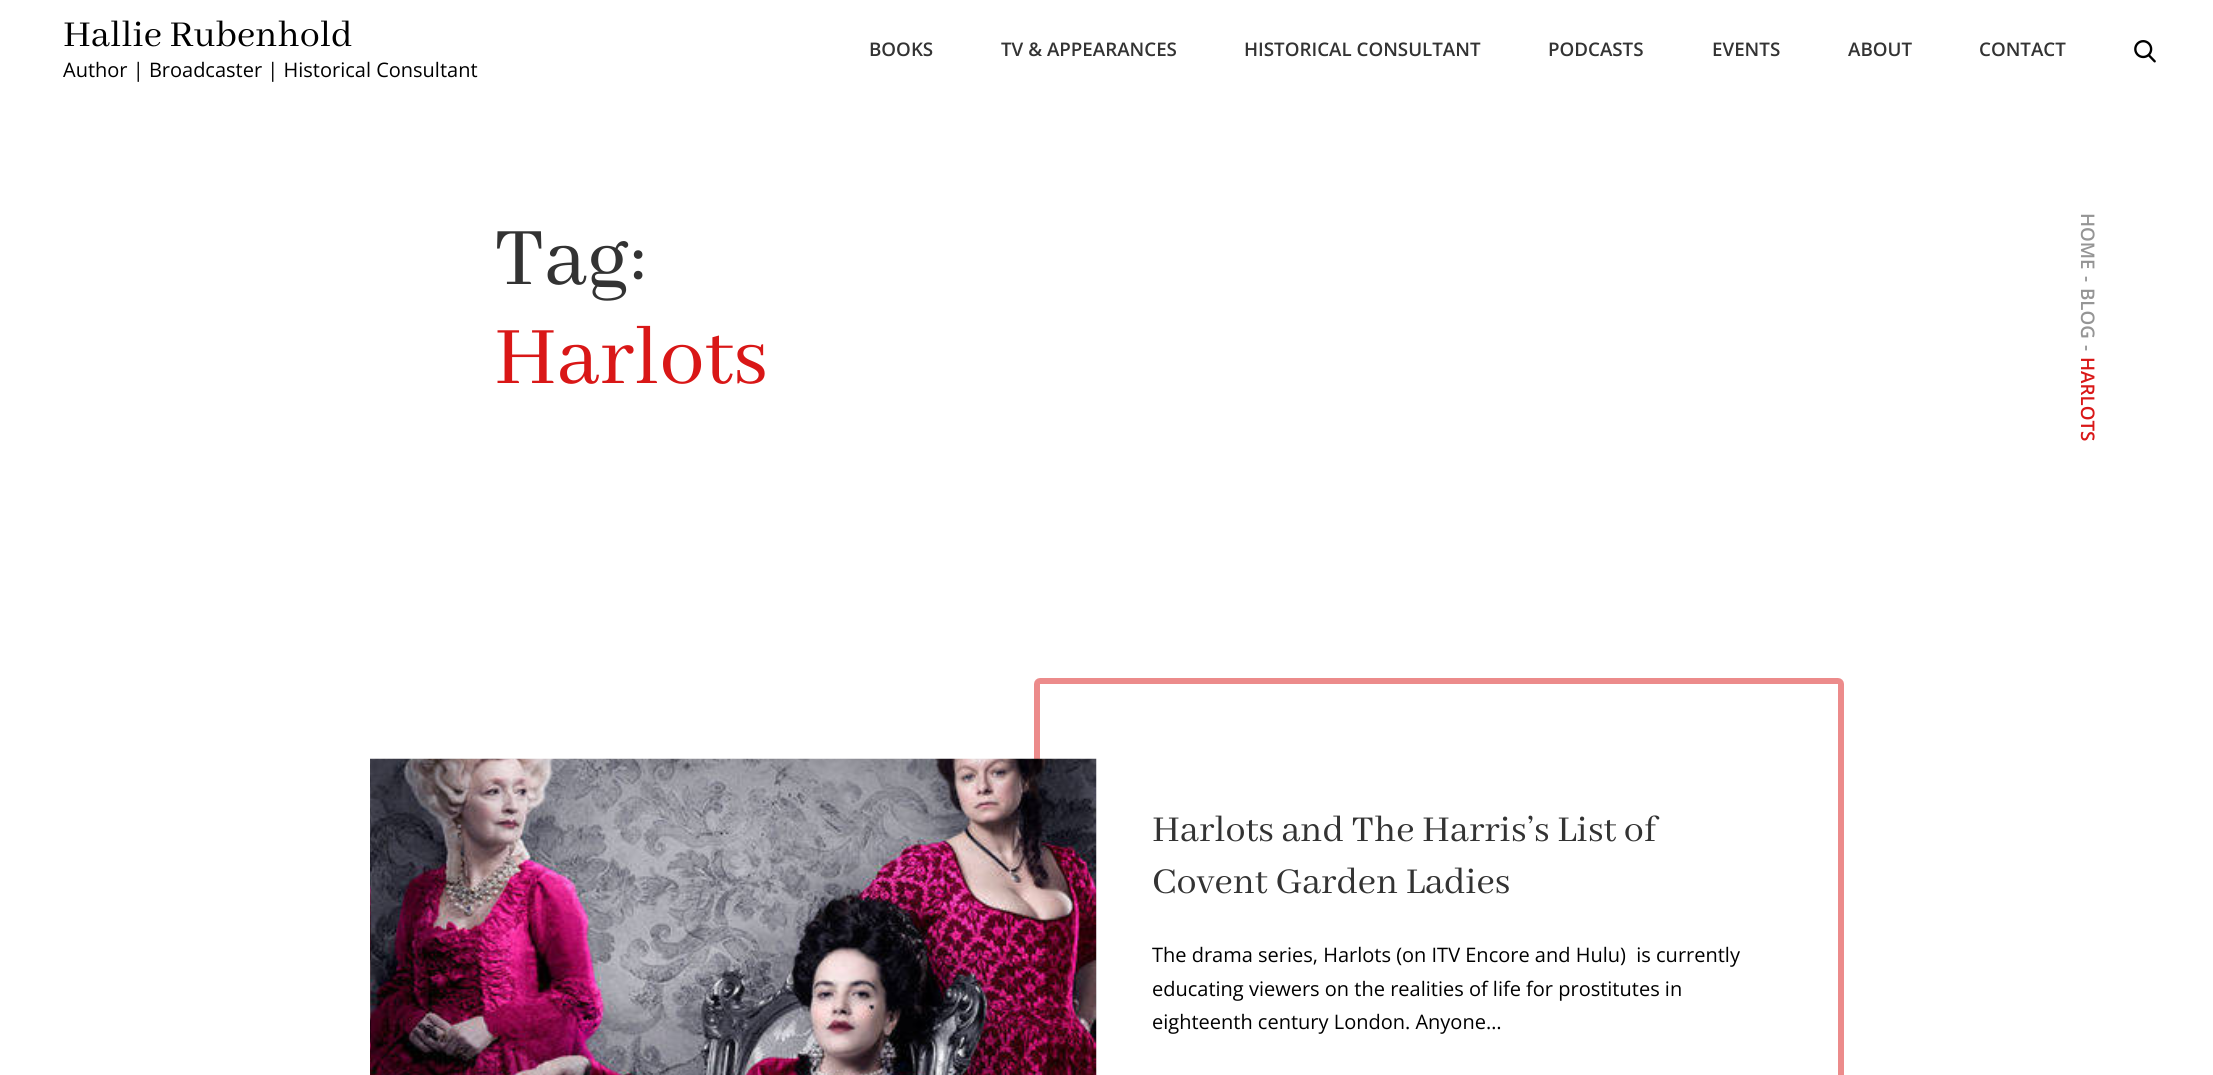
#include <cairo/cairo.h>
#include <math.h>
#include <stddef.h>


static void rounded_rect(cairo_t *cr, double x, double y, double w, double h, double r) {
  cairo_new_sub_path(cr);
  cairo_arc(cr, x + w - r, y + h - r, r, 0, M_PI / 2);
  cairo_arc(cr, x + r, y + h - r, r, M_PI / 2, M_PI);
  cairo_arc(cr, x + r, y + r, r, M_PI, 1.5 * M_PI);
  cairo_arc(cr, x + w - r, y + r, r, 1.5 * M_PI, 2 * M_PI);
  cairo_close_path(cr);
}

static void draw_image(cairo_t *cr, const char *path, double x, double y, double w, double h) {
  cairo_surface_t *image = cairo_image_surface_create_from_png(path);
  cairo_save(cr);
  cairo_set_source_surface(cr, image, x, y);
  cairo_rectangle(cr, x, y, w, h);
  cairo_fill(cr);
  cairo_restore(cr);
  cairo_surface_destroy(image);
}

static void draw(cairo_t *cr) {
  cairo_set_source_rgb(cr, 1, 1, 1);
  cairo_paint(cr);
  draw_image(cr, "images/1.png", 2134, 40, 22, 23);
  rounded_rect(cr, 1037, 681, 804, 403, 3);
  cairo_set_source_rgb(cr, 236 / 255.0, 139 / 255.0, 139 / 255.0);
  cairo_set_line_width(cr, 6);
  cairo_stroke(cr);
  draw_image(cr, "images/2.png", 370, 758, 727, 317);
  cairo_select_font_face(cr, "Abhaya Libre", CAIRO_FONT_SLANT_NORMAL, CAIRO_FONT_WEIGHT_NORMAL);
  cairo_set_font_size(cr, 40);
  cairo_set_source_rgb(cr, 0, 0, 0);
  cairo_move_to(cr, 63, 46);
  cairo_show_text(cr, "Hallie Rubenhold");
  cairo_select_font_face(cr, "Open Sans", CAIRO_FONT_SLANT_NORMAL, CAIRO_FONT_WEIGHT_NORMAL);
  cairo_set_font_size(cr, 20);
  cairo_move_to(cr, 63, 77);
  cairo_show_text(cr, "Author | Broadcaster | Historical Consultant");
  cairo_select_font_face(cr, "Open Sans SemiBold", CAIRO_FONT_SLANT_NORMAL, CAIRO_FONT_WEIGHT_NORMAL);
  cairo_set_font_size(cr, 18.75);
  cairo_set_source_rgb(cr, 51 / 255.0, 51 / 255.0, 51 / 255.0);
  cairo_move_to(cr, 869, 56);
  cairo_show_text(cr, "BOOKS");
  cairo_move_to(cr, 1001, 56);
  cairo_show_text(cr, "TV & APPEARANCES");
  cairo_move_to(cr, 1244, 56);
  cairo_show_text(cr, "HISTORICAL CONSULTANT");
  cairo_move_to(cr, 1548, 56);
  cairo_show_text(cr, "PODCASTS");
  cairo_move_to(cr, 1712, 56);
  cairo_show_text(cr, "EVENTS");
  cairo_move_to(cr, 1848, 56);
  cairo_show_text(cr, "ABOUT");
  cairo_move_to(cr, 1979, 56);
  cairo_show_text(cr, "CONTACT");
  cairo_select_font_face(cr, "Abhaya Libre", CAIRO_FONT_SLANT_NORMAL, CAIRO_FONT_WEIGHT_NORMAL);
  cairo_set_font_size(cr, 90);
  cairo_move_to(cr, 494, 284);
  cairo_show_text(cr, "Tag:");
  cairo_set_source_rgb(cr, 217 / 255.0, 23 / 255.0, 23 / 255.0);
  cairo_move_to(cr, 494, 383);
  cairo_show_text(cr, "Harlots");
  cairo_select_font_face(cr, "Open Sans SemiBold", CAIRO_FONT_SLANT_NORMAL, CAIRO_FONT_WEIGHT_NORMAL);
  cairo_set_font_size(cr, 18.75);
  cairo_set_source_rgb(cr, 149 / 255.0, 149 / 255.0, 149 / 255.0);
  cairo_save(cr);
  cairo_translate(cr, 2081, 213);
  cairo_rotate(cr, 90 * M_PI / 180);
  cairo_move_to(cr, 0, 0);
  cairo_show_text(cr, "HOME");
  cairo_restore(cr);
  cairo_save(cr);
  cairo_translate(cr, 2081, 276);
  cairo_rotate(cr, 90 * M_PI / 180);
  cairo_move_to(cr, 0, 0);
  cairo_show_text(cr, "-");
  cairo_restore(cr);
  cairo_save(cr);
  cairo_translate(cr, 2081, 288);
  cairo_rotate(cr, 90 * M_PI / 180);
  cairo_move_to(cr, 0, 0);
  cairo_show_text(cr, "BLOG");
  cairo_restore(cr);
  cairo_save(cr);
  cairo_translate(cr, 2081, 345);
  cairo_rotate(cr, 90 * M_PI / 180);
  cairo_move_to(cr, 0, 0);
  cairo_show_text(cr, "-");
  cairo_restore(cr);
  cairo_set_source_rgb(cr, 217 / 255.0, 23 / 255.0, 23 / 255.0);
  cairo_save(cr);
  cairo_translate(cr, 2081, 357);
  cairo_rotate(cr, 90 * M_PI / 180);
  cairo_move_to(cr, 0, 0);
  cairo_show_text(cr, "HARLOTS");
  cairo_restore(cr);
  cairo_select_font_face(cr, "Abhaya Libre", CAIRO_FONT_SLANT_NORMAL, CAIRO_FONT_WEIGHT_NORMAL);
  cairo_set_font_size(cr, 40);
  cairo_set_source_rgb(cr, 51 / 255.0, 51 / 255.0, 51 / 255.0);
  cairo_move_to(cr, 1152, 841);
  cairo_show_text(cr, "Harlots and The Harris’s List of");
  cairo_move_to(cr, 1152, 893);
  cairo_show_text(cr, "Covent Garden Ladies");
  cairo_select_font_face(cr, "Open Sans", CAIRO_FONT_SLANT_NORMAL, CAIRO_FONT_WEIGHT_NORMAL);
  cairo_set_font_size(cr, 20);
  cairo_set_source_rgb(cr, 0, 0, 0);
  cairo_move_to(cr, 1152, 962);
  cairo_show_text(cr, "The drama series, Harlots (on ITV Encore and Hulu)  is currently");
  cairo_move_to(cr, 1152, 996);
  cairo_show_text(cr, "educating viewers on the realities of life for prostitutes in");
  cairo_move_to(cr, 1152, 1029);
  cairo_show_text(cr, "eighteenth century London. Anyone…");
}

int main(void) {
  cairo_surface_t *surface = cairo_image_surface_create(CAIRO_FORMAT_RGB24, 2213, 1075);
  cairo_t *cr = cairo_create(surface);
  cairo_font_options_t *options = cairo_font_options_create();
  cairo_font_options_set_hint_metrics(options, CAIRO_HINT_METRICS_OFF);
  cairo_font_options_set_hint_style(options, CAIRO_HINT_STYLE_NONE);
  cairo_set_font_options(cr, options);
  cairo_set_miter_limit(cr, 4);
  draw(cr);
  cairo_surface_write_to_png(surface, "out.png");
  cairo_font_options_destroy(options);
  cairo_destroy(cr);
  cairo_surface_destroy(surface);
  return 0;
}
